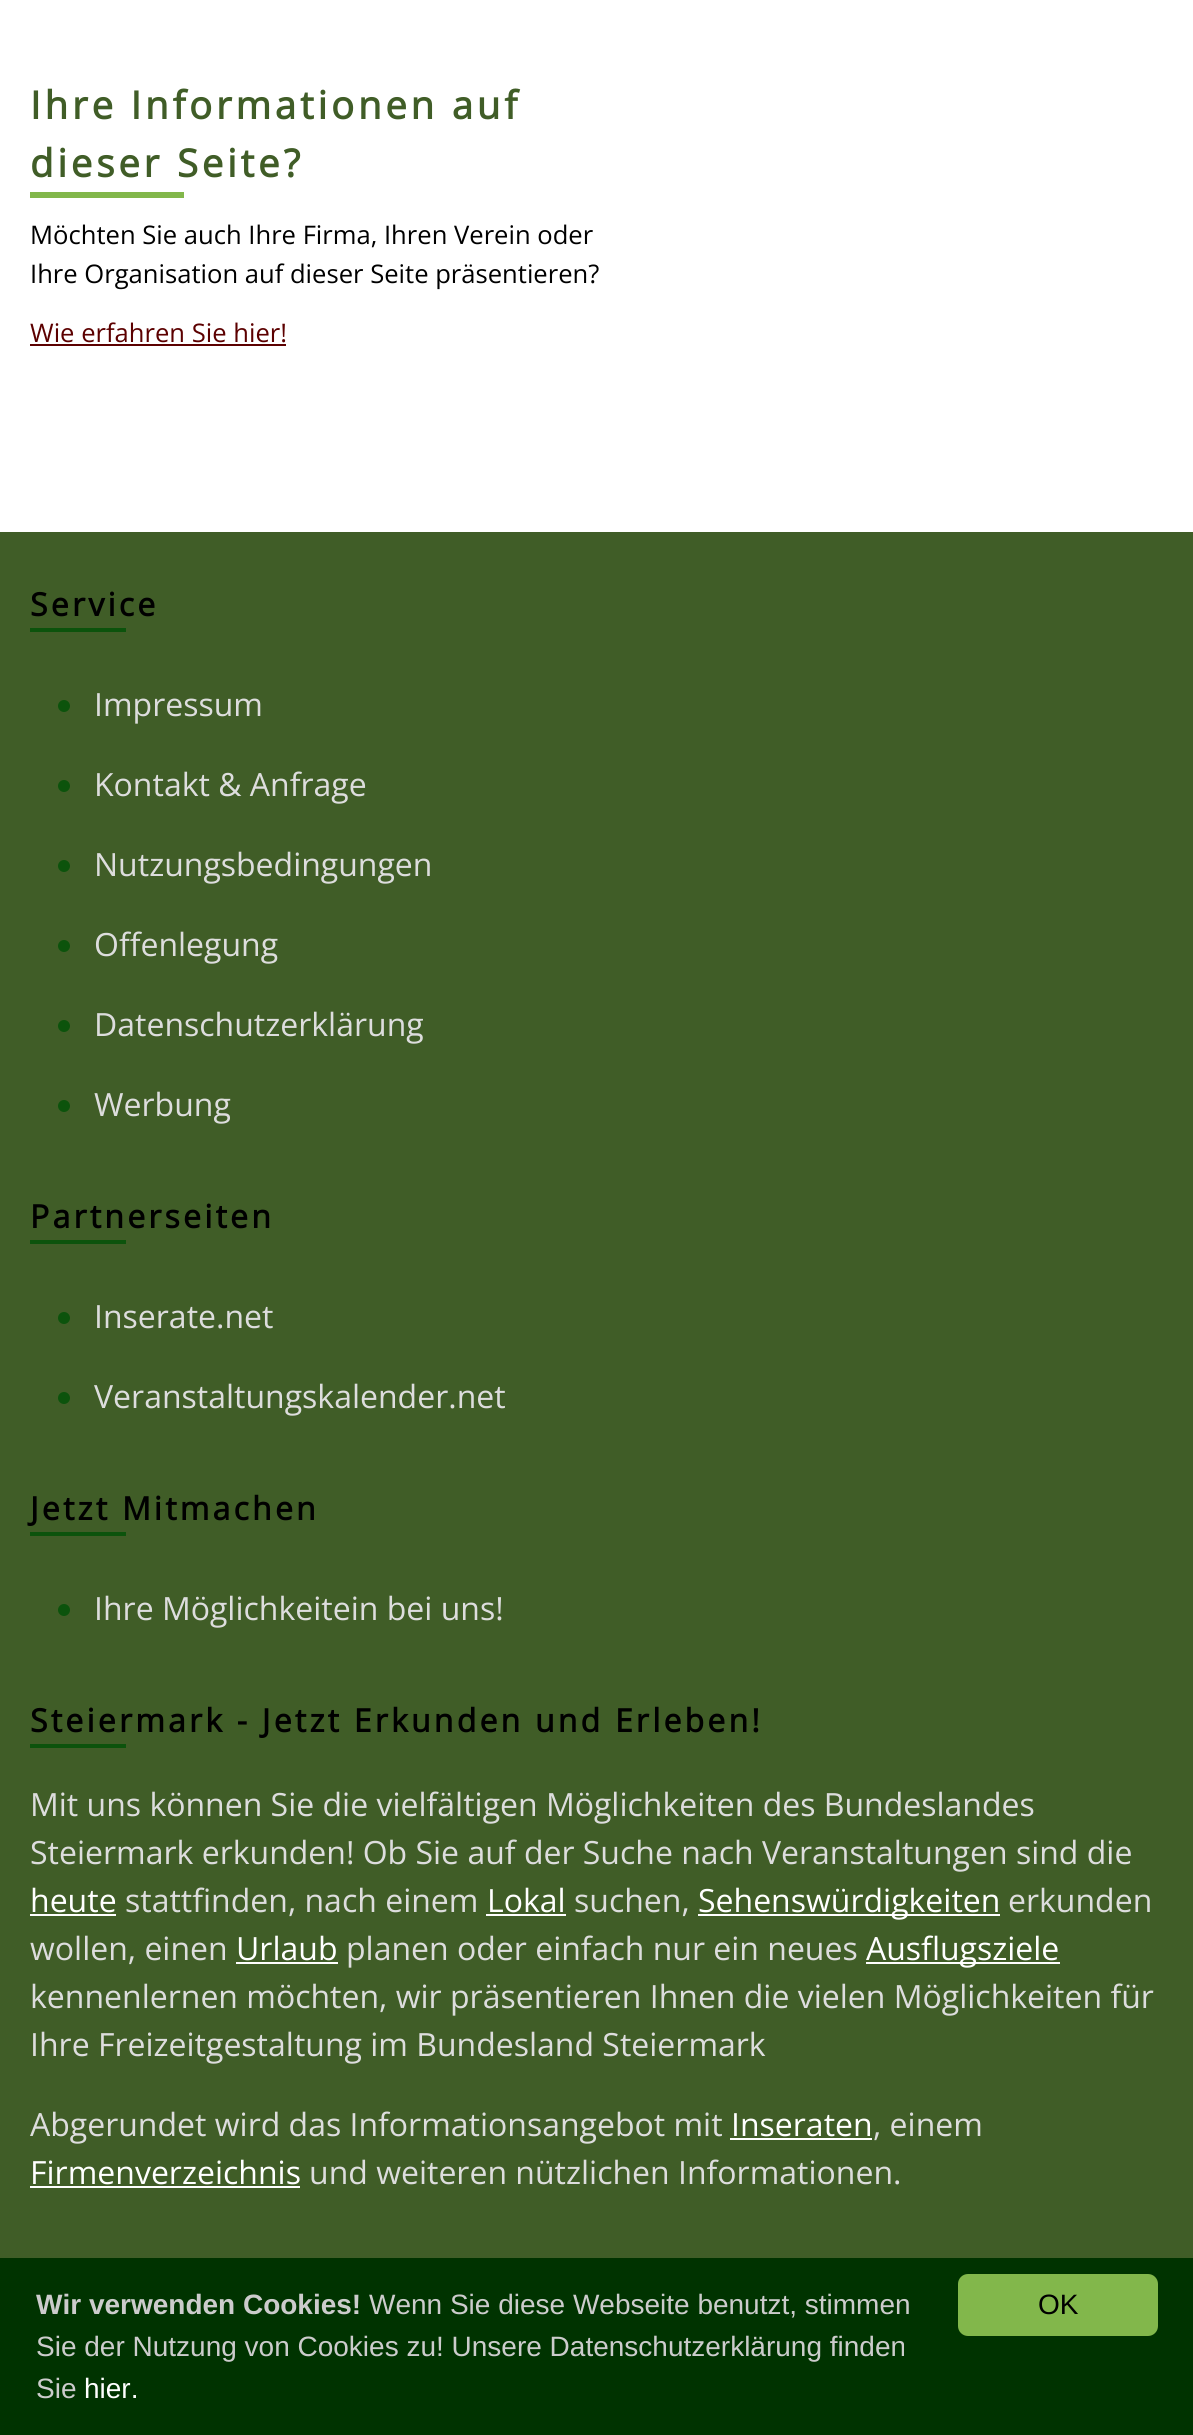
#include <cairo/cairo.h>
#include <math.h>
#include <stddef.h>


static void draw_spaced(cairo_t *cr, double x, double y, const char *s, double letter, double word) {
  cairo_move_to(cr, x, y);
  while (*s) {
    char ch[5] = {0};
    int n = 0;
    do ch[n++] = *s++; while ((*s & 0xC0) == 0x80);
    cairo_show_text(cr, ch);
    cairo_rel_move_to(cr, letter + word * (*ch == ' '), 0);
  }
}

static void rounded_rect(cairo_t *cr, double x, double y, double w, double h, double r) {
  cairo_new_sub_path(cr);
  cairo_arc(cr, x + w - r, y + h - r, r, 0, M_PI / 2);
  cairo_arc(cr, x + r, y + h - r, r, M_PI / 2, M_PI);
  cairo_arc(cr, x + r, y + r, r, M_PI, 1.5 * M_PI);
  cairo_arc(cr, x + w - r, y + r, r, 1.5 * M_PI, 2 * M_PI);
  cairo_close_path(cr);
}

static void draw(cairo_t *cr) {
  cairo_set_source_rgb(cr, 1, 1, 1);
  cairo_paint(cr);
  cairo_set_source_rgb(cr, 130 / 255.0, 183 / 255.0, 75 / 255.0);
  cairo_rectangle(cr, 30, 192, 154, 6);
  cairo_fill(cr);
  cairo_set_source_rgb(cr, 92 / 255.0, 0, 0);
  cairo_rectangle(cr, 30, 344, 256, 2);
  cairo_fill(cr);
  cairo_set_source_rgb(cr, 64 / 255.0, 93 / 255.0, 39 / 255.0);
  cairo_rectangle(cr, 0, 532, 1193, 1726);
  cairo_fill(cr);
  cairo_set_source_rgb(cr, 12 / 255.0, 83 / 255.0, 12 / 255.0);
  cairo_rectangle(cr, 30, 628, 96, 4);
  cairo_fill(cr);
  cairo_arc(cr, 64, 706, 6, 0, 2 * M_PI);
  cairo_fill(cr);
  cairo_arc(cr, 64, 786, 6, 0, 2 * M_PI);
  cairo_fill(cr);
  cairo_arc(cr, 64, 866, 6, 0, 2 * M_PI);
  cairo_fill(cr);
  cairo_arc(cr, 64, 946, 6, 0, 2 * M_PI);
  cairo_fill(cr);
  cairo_arc(cr, 64, 1026, 6, 0, 2 * M_PI);
  cairo_fill(cr);
  cairo_arc(cr, 64, 1106, 6, 0, 2 * M_PI);
  cairo_fill(cr);
  cairo_rectangle(cr, 30, 1240, 96, 4);
  cairo_fill(cr);
  cairo_arc(cr, 64, 1318, 6, 0, 2 * M_PI);
  cairo_fill(cr);
  cairo_arc(cr, 64, 1398, 6, 0, 2 * M_PI);
  cairo_fill(cr);
  cairo_rectangle(cr, 30, 1532, 96, 4);
  cairo_fill(cr);
  cairo_arc(cr, 64, 1610, 6, 0, 2 * M_PI);
  cairo_fill(cr);
  cairo_rectangle(cr, 30, 1744, 96, 4);
  cairo_fill(cr);
  cairo_set_source_rgb(cr, 1, 1, 1);
  cairo_rectangle(cr, 30, 1914, 86, 2);
  cairo_fill(cr);
  cairo_rectangle(cr, 486, 1914, 80, 2);
  cairo_fill(cr);
  cairo_rectangle(cr, 698, 1914, 302, 2);
  cairo_fill(cr);
  cairo_rectangle(cr, 236, 1962, 102, 2);
  cairo_fill(cr);
  cairo_rectangle(cr, 866, 1962, 194, 2);
  cairo_fill(cr);
  cairo_rectangle(cr, 730, 2138, 142, 2);
  cairo_fill(cr);
  cairo_rectangle(cr, 30, 2186, 270, 2);
  cairo_fill(cr);
  cairo_set_source_rgb(cr, 0, 51 / 255.0, 0);
  cairo_rectangle(cr, 0, 2258, 1193, 177);
  cairo_fill(cr);
  cairo_set_source_rgb(cr, 130 / 255.0, 183 / 255.0, 75 / 255.0);
  rounded_rect(cr, 958, 2274, 200, 62, 10);
  cairo_fill(cr);
  cairo_select_font_face(cr, "Open Sans", CAIRO_FONT_SLANT_NORMAL, CAIRO_FONT_WEIGHT_BOLD);
  cairo_set_font_size(cr, 38.4);
  cairo_set_source_rgb(cr, 64 / 255.0, 93 / 255.0, 39 / 255.0);
  draw_spaced(cr, 30, 119, "Ihre Informationen auf", 3.8, 0);
  draw_spaced(cr, 30, 177, "dieser Seite?", 3.8, 0);
  cairo_select_font_face(cr, "Open Sans", CAIRO_FONT_SLANT_NORMAL, CAIRO_FONT_WEIGHT_NORMAL);
  cairo_set_font_size(cr, 25.6);
  cairo_set_source_rgb(cr, 0, 0, 0);
  cairo_move_to(cr, 30, 244);
  cairo_show_text(cr, "Möchten Sie auch Ihre Firma, Ihren Verein oder");
  cairo_move_to(cr, 30, 283);
  cairo_show_text(cr, "Ihre Organisation auf dieser Seite präsentieren?");
  cairo_set_source_rgb(cr, 92 / 255.0, 0, 0);
  cairo_move_to(cr, 30, 342);
  cairo_show_text(cr, "Wie erfahren Sie hier!");
  cairo_select_font_face(cr, "Open Sans", CAIRO_FONT_SLANT_NORMAL, CAIRO_FONT_WEIGHT_BOLD);
  cairo_set_font_size(cr, 32);
  cairo_set_source_rgb(cr, 0, 0, 0);
  draw_spaced(cr, 30, 616, "Service", 3.2, 0);
  cairo_select_font_face(cr, "Open Sans", CAIRO_FONT_SLANT_NORMAL, CAIRO_FONT_WEIGHT_NORMAL);
  cairo_set_source_rgb(cr, 221 / 255.0, 221 / 255.0, 221 / 255.0);
  cairo_move_to(cr, 94, 716);
  cairo_show_text(cr, "Impressum");
  cairo_move_to(cr, 94, 796);
  cairo_show_text(cr, "Kontakt & Anfrage");
  cairo_move_to(cr, 94, 876);
  cairo_show_text(cr, "Nutzungsbedingungen");
  cairo_move_to(cr, 94, 956);
  cairo_show_text(cr, "Offenlegung");
  cairo_move_to(cr, 94, 1036);
  cairo_show_text(cr, "Datenschutzerklärung");
  cairo_move_to(cr, 94, 1116);
  cairo_show_text(cr, "Werbung");
  cairo_select_font_face(cr, "Open Sans", CAIRO_FONT_SLANT_NORMAL, CAIRO_FONT_WEIGHT_BOLD);
  cairo_set_source_rgb(cr, 0, 0, 0);
  draw_spaced(cr, 30, 1228, "Partnerseiten", 3.2, 0);
  cairo_select_font_face(cr, "Open Sans", CAIRO_FONT_SLANT_NORMAL, CAIRO_FONT_WEIGHT_NORMAL);
  cairo_set_source_rgb(cr, 221 / 255.0, 221 / 255.0, 221 / 255.0);
  cairo_move_to(cr, 94, 1328);
  cairo_show_text(cr, "Inserate.net");
  cairo_move_to(cr, 94, 1408);
  cairo_show_text(cr, "Veranstaltungskalender.net");
  cairo_select_font_face(cr, "Open Sans", CAIRO_FONT_SLANT_NORMAL, CAIRO_FONT_WEIGHT_BOLD);
  cairo_set_source_rgb(cr, 0, 0, 0);
  draw_spaced(cr, 30, 1520, "Jetzt Mitmachen", 3.2, 0);
  cairo_select_font_face(cr, "Open Sans", CAIRO_FONT_SLANT_NORMAL, CAIRO_FONT_WEIGHT_NORMAL);
  cairo_set_source_rgb(cr, 221 / 255.0, 221 / 255.0, 221 / 255.0);
  cairo_move_to(cr, 94, 1620);
  cairo_show_text(cr, "Ihre Möglichkeitein bei uns!");
  cairo_select_font_face(cr, "Open Sans", CAIRO_FONT_SLANT_NORMAL, CAIRO_FONT_WEIGHT_BOLD);
  cairo_set_source_rgb(cr, 0, 0, 0);
  draw_spaced(cr, 30, 1732, "Steiermark - Jetzt Erkunden und Erleben!", 3.2, 0);
  cairo_select_font_face(cr, "Open Sans", CAIRO_FONT_SLANT_NORMAL, CAIRO_FONT_WEIGHT_NORMAL);
  cairo_set_source_rgb(cr, 221 / 255.0, 221 / 255.0, 221 / 255.0);
  cairo_move_to(cr, 30, 1816);
  cairo_show_text(cr, "Mit uns können Sie die vielfältigen Möglichkeiten des Bundeslandes");
  cairo_move_to(cr, 30, 1864);
  cairo_show_text(cr, "Steiermark erkunden! Ob Sie auf der Suche nach Veranstaltungen sind die");
  cairo_set_source_rgb(cr, 1, 1, 1);
  cairo_move_to(cr, 30, 1912);
  cairo_show_text(cr, "heute");
  cairo_set_source_rgb(cr, 221 / 255.0, 221 / 255.0, 221 / 255.0);
  cairo_move_to(cr, 125, 1912);
  cairo_show_text(cr, "stattfinden, nach einem");
  cairo_set_source_rgb(cr, 1, 1, 1);
  cairo_move_to(cr, 487, 1912);
  cairo_show_text(cr, "Lokal");
  cairo_set_source_rgb(cr, 221 / 255.0, 221 / 255.0, 221 / 255.0);
  cairo_move_to(cr, 574, 1912);
  cairo_show_text(cr, "suchen,");
  cairo_set_source_rgb(cr, 1, 1, 1);
  cairo_move_to(cr, 698, 1912);
  cairo_show_text(cr, "Sehenswürdigkeiten");
  cairo_set_source_rgb(cr, 221 / 255.0, 221 / 255.0, 221 / 255.0);
  cairo_move_to(cr, 1008, 1912);
  cairo_show_text(cr, "erkunden");
  cairo_move_to(cr, 30, 1960);
  cairo_show_text(cr, "wollen, einen");
  cairo_set_source_rgb(cr, 1, 1, 1);
  cairo_move_to(cr, 236, 1960);
  cairo_show_text(cr, "Urlaub");
  cairo_set_source_rgb(cr, 221 / 255.0, 221 / 255.0, 221 / 255.0);
  cairo_move_to(cr, 346, 1960);
  cairo_show_text(cr, "planen oder einfach nur ein neues");
  cairo_set_source_rgb(cr, 1, 1, 1);
  cairo_move_to(cr, 866, 1960);
  cairo_show_text(cr, "Ausflugsziele");
  cairo_set_source_rgb(cr, 221 / 255.0, 221 / 255.0, 221 / 255.0);
  cairo_move_to(cr, 30, 2008);
  cairo_show_text(cr, "kennenlernen möchten, wir präsentieren Ihnen die vielen Möglichkeiten für");
  cairo_move_to(cr, 30, 2056);
  cairo_show_text(cr, "Ihre Freizeitgestaltung im Bundesland Steiermark");
  cairo_move_to(cr, 30, 2136);
  cairo_show_text(cr, "Abgerundet wird das Informationsangebot mit");
  cairo_set_source_rgb(cr, 1, 1, 1);
  cairo_move_to(cr, 731, 2136);
  cairo_show_text(cr, "Inseraten");
  cairo_set_source_rgb(cr, 221 / 255.0, 221 / 255.0, 221 / 255.0);
  cairo_move_to(cr, 873, 2136);
  cairo_show_text(cr, ", einem");
  cairo_set_source_rgb(cr, 1, 1, 1);
  cairo_move_to(cr, 30, 2184);
  cairo_show_text(cr, "Firmenverzeichnis");
  cairo_set_source_rgb(cr, 221 / 255.0, 221 / 255.0, 221 / 255.0);
  cairo_move_to(cr, 309, 2184);
  cairo_show_text(cr, "und weiteren nützlichen Informationen.");
  cairo_select_font_face(cr, "Liberation Sans", CAIRO_FONT_SLANT_NORMAL, CAIRO_FONT_WEIGHT_BOLD);
  cairo_set_font_size(cr, 28);
  cairo_set_source_rgb(cr, 204 / 255.0, 204 / 255.0, 204 / 255.0);
  cairo_move_to(cr, 36, 2314);
  cairo_show_text(cr, "Wir verwenden Cookies!");
  cairo_select_font_face(cr, "Liberation Sans", CAIRO_FONT_SLANT_NORMAL, CAIRO_FONT_WEIGHT_NORMAL);
  cairo_move_to(cr, 369, 2314);
  cairo_show_text(cr, "Wenn Sie diese Webseite benutzt, stimmen");
  cairo_move_to(cr, 36, 2356);
  cairo_show_text(cr, "Sie der Nutzung von Cookies zu! Unsere Datenschutzerklärung finden");
  cairo_move_to(cr, 36, 2398);
  cairo_show_text(cr, "Sie");
  cairo_set_source_rgb(cr, 1, 1, 1);
  cairo_move_to(cr, 84, 2398);
  cairo_show_text(cr, "hier.");
  cairo_set_source_rgb(cr, 0, 0, 0);
  cairo_move_to(cr, 1038, 2314);
  cairo_show_text(cr, "OK");
}

int main(void) {
  cairo_surface_t *surface = cairo_image_surface_create(CAIRO_FORMAT_RGB24, 1193, 2435);
  cairo_t *cr = cairo_create(surface);
  cairo_font_options_t *options = cairo_font_options_create();
  cairo_font_options_set_hint_metrics(options, CAIRO_HINT_METRICS_OFF);
  cairo_font_options_set_hint_style(options, CAIRO_HINT_STYLE_NONE);
  cairo_set_font_options(cr, options);
  cairo_set_miter_limit(cr, 4);
  draw(cr);
  cairo_surface_write_to_png(surface, "out.png");
  cairo_font_options_destroy(options);
  cairo_destroy(cr);
  cairo_surface_destroy(surface);
  return 0;
}
